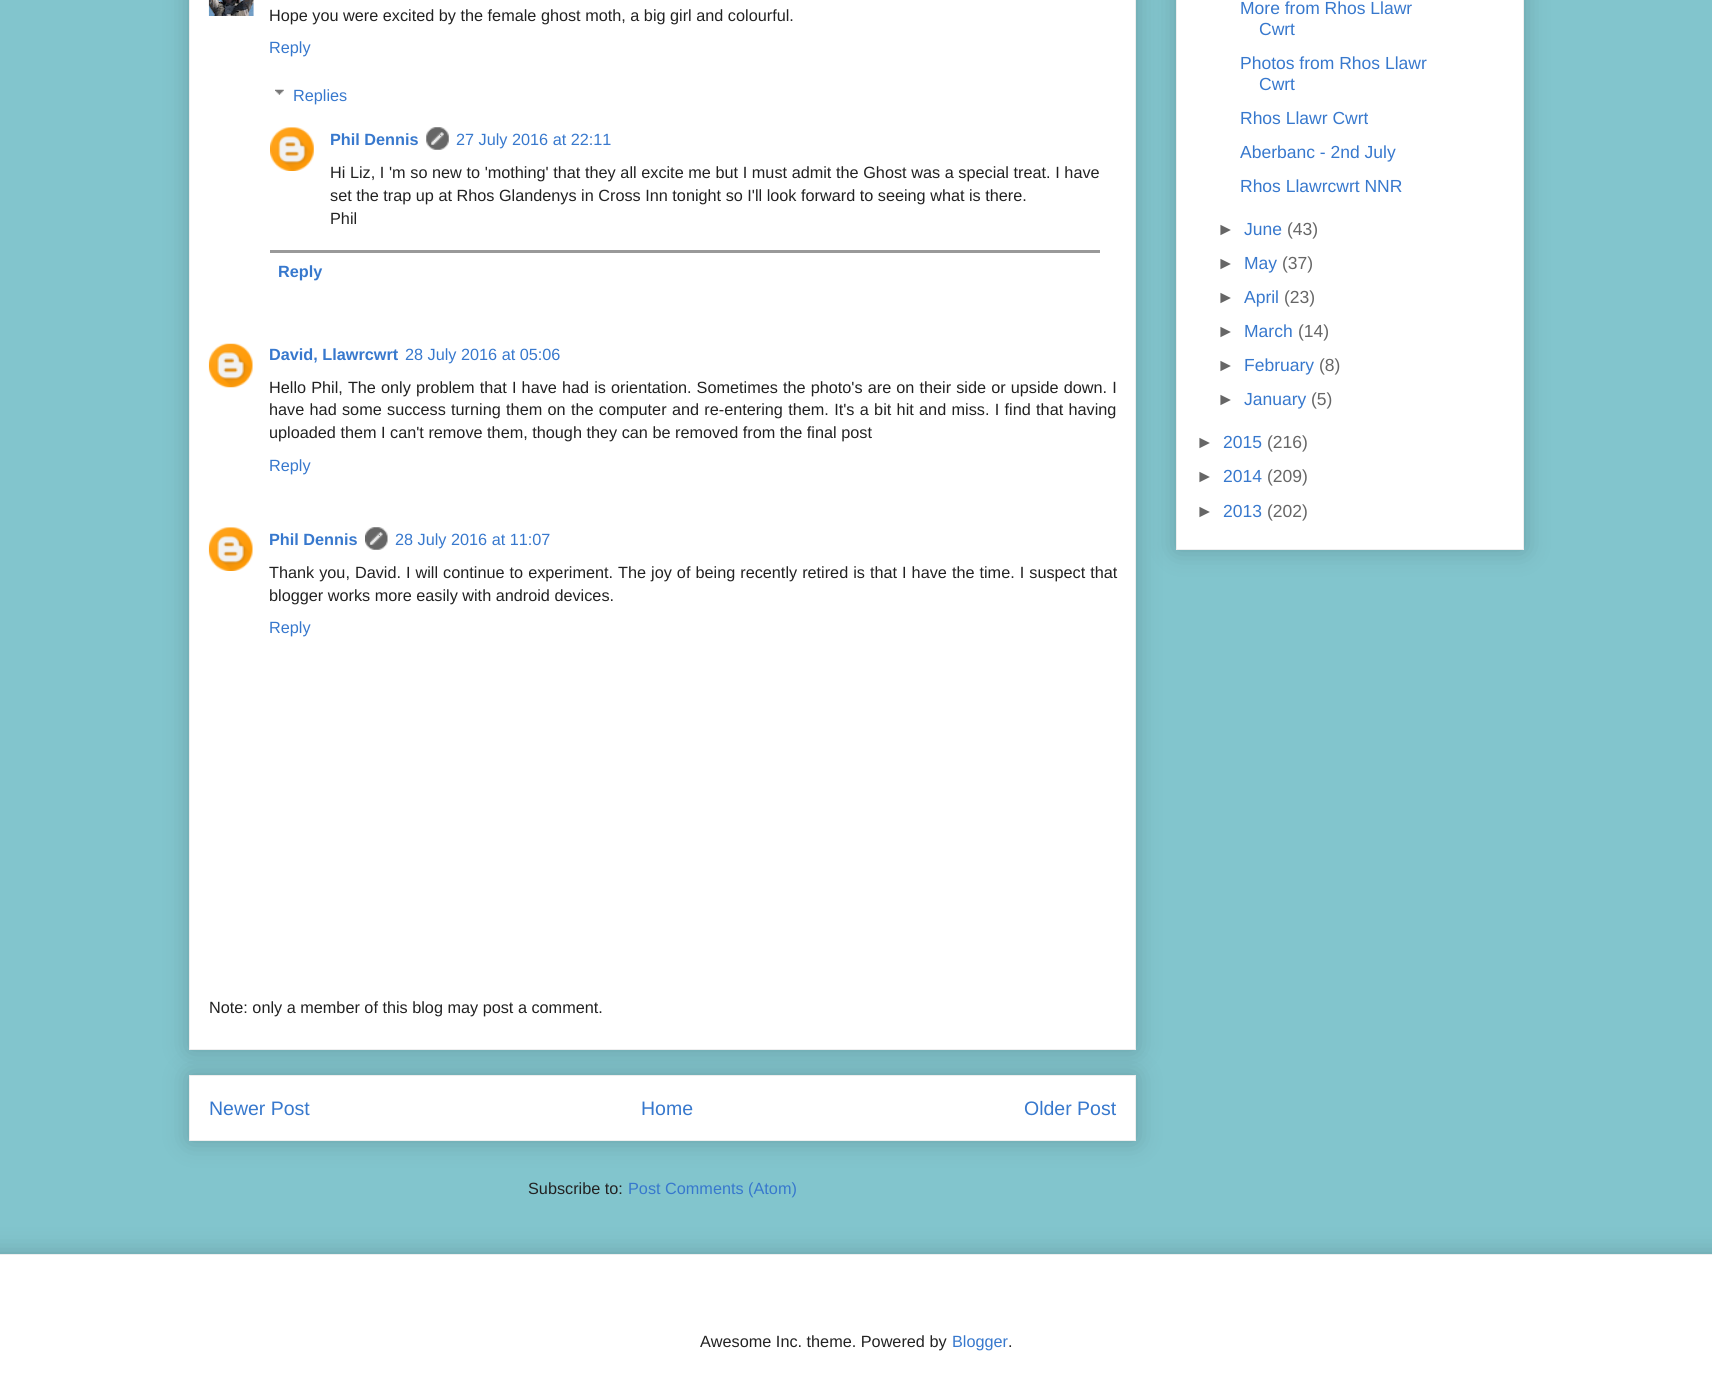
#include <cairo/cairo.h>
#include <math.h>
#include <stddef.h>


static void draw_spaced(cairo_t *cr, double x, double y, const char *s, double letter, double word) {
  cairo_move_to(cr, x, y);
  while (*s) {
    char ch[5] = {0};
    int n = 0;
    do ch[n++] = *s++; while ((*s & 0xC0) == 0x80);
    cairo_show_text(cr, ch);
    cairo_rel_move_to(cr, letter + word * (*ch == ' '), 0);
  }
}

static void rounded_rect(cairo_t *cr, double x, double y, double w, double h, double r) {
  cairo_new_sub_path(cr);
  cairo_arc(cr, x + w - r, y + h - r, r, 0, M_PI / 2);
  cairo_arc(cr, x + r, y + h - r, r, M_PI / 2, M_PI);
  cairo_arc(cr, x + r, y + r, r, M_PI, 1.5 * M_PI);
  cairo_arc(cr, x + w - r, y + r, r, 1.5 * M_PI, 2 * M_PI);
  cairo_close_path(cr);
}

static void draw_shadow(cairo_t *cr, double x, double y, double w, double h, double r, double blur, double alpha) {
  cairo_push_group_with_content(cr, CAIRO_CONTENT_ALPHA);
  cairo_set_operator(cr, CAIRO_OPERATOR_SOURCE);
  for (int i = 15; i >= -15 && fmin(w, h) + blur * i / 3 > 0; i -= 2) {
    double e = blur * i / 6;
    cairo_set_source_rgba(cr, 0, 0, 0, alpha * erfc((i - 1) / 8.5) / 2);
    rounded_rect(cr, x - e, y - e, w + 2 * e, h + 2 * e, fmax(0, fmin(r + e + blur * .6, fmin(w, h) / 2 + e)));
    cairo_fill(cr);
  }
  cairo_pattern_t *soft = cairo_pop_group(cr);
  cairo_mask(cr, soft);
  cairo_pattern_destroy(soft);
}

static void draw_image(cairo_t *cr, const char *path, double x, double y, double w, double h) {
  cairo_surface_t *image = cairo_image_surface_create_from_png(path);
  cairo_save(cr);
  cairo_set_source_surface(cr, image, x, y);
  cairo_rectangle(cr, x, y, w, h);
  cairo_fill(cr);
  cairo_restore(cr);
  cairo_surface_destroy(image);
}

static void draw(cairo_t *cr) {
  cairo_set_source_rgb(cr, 130 / 255.0, 197 / 255.0, 205 / 255.0);
  cairo_paint(cr);
  cairo_set_source_rgb(cr, 0, 0, 0);
  draw_shadow(cr, 189, 1075, 947, 66, 0, 12.5, 0.2);
  cairo_set_source_rgb(cr, 1, 1, 1);
  cairo_rectangle(cr, 189.5, 1075.5, 946, 65);
  cairo_fill_preserve(cr);
  cairo_set_source_rgb(cr, 238 / 255.0, 238 / 255.0, 238 / 255.0);
  cairo_set_line_width(cr, 1);
  cairo_stroke(cr);
  cairo_set_source_rgb(cr, 0, 0, 0);
  draw_shadow(cr, 189, -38, 947, 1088, 0, 12.5, 0.2);
  cairo_set_source_rgb(cr, 1, 1, 1);
  cairo_rectangle(cr, 189.5, -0.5, 946, 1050);
  cairo_fill_preserve(cr);
  cairo_set_source_rgb(cr, 238 / 255.0, 238 / 255.0, 238 / 255.0);
  cairo_stroke(cr);
  draw_image(cr, "images/1.png", 208, 0, 46, 16);
  draw_image(cr, "images/2.png", 275, 89, 9, 6);
  draw_image(cr, "images/3.png", 270, 127, 44, 44);
  draw_image(cr, "images/4.png", 426, 127, 23, 23);
  cairo_set_source_rgb(cr, 153 / 255.0, 153 / 255.0, 153 / 255.0);
  cairo_rectangle(cr, 270, 250, 830, 3);
  cairo_fill(cr);
  draw_image(cr, "images/5.png", 208, 343, 45, 45);
  draw_image(cr, "images/6.png", 208, 527, 45, 44);
  draw_image(cr, "images/7.png", 365, 527, 23, 23);
  cairo_set_source_rgb(cr, 0, 0, 0);
  draw_shadow(cr, 1176, -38, 348, 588, 0, 12.5, 0.2);
  cairo_set_source_rgb(cr, 1, 1, 1);
  cairo_rectangle(cr, 1176.5, -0.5, 347, 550);
  cairo_fill_preserve(cr);
  cairo_set_source_rgb(cr, 238 / 255.0, 238 / 255.0, 238 / 255.0);
  cairo_stroke(cr);
  cairo_set_source_rgb(cr, 0, 0, 0);
  draw_shadow(cr, -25, 1254, 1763, 136, 0, 12.5, 0.2);
  cairo_set_source_rgb(cr, 1, 1, 1);
  cairo_rectangle(cr, 0, 1255, 1712, 135);
  cairo_fill(cr);
  cairo_set_source_rgb(cr, 238 / 255.0, 238 / 255.0, 238 / 255.0);
  cairo_rectangle(cr, 0, 1254, 1712, 1);
  cairo_fill(cr);
  cairo_select_font_face(cr, "Liberation Sans", CAIRO_FONT_SLANT_NORMAL, CAIRO_FONT_WEIGHT_NORMAL);
  cairo_set_font_size(cr, 16.25);
  cairo_set_source_rgb(cr, 34 / 255.0, 34 / 255.0, 34 / 255.0);
  cairo_move_to(cr, 269, 21);
  cairo_show_text(cr, "Hope you were excited by the female ghost moth, a big girl and colourful.");
  cairo_set_source_rgb(cr, 55 / 255.0, 120 / 255.0, 205 / 255.0);
  cairo_move_to(cr, 269, 53);
  cairo_show_text(cr, "Reply");
  cairo_move_to(cr, 293, 101);
  cairo_show_text(cr, "Replies");
  cairo_select_font_face(cr, "Liberation Sans", CAIRO_FONT_SLANT_NORMAL, CAIRO_FONT_WEIGHT_BOLD);
  cairo_move_to(cr, 330, 145);
  cairo_show_text(cr, "Phil Dennis");
  cairo_select_font_face(cr, "Liberation Sans", CAIRO_FONT_SLANT_NORMAL, CAIRO_FONT_WEIGHT_NORMAL);
  cairo_move_to(cr, 456, 145);
  cairo_show_text(cr, "27 July 2016 at 22:11");
  cairo_set_source_rgb(cr, 34 / 255.0, 34 / 255.0, 34 / 255.0);
  draw_spaced(cr, 330, 178, "Hi Liz, I 'm so new to 'mothing' that they all excite me but I must admit the Ghost was a special treat. I have", 0, 0.1);
  cairo_move_to(cr, 330, 201);
  cairo_show_text(cr, "set the trap up at Rhos Glandenys in Cross Inn tonight so I'll look forward to seeing what is there.");
  cairo_move_to(cr, 330, 224);
  cairo_show_text(cr, "Phil");
  cairo_select_font_face(cr, "Liberation Sans", CAIRO_FONT_SLANT_NORMAL, CAIRO_FONT_WEIGHT_BOLD);
  cairo_set_source_rgb(cr, 55 / 255.0, 120 / 255.0, 205 / 255.0);
  cairo_move_to(cr, 278, 277);
  cairo_show_text(cr, "Reply");
  cairo_move_to(cr, 269, 360);
  cairo_show_text(cr, "David, Llawrcwrt");
  cairo_select_font_face(cr, "Liberation Sans", CAIRO_FONT_SLANT_NORMAL, CAIRO_FONT_WEIGHT_NORMAL);
  cairo_move_to(cr, 405, 360);
  cairo_show_text(cr, "28 July 2016 at 05:06");
  cairo_set_source_rgb(cr, 34 / 255.0, 34 / 255.0, 34 / 255.0);
  draw_spaced(cr, 269, 393, "Hello Phil, The only problem that I have had is orientation. Sometimes the photo's are on their side or upside down. I", 0, 0.6);
  draw_spaced(cr, 269, 415, "have had some success turning them on the computer and re-entering them. It's a bit hit and miss. I find that having", 0, 0.8);
  cairo_move_to(cr, 269, 438);
  cairo_show_text(cr, "uploaded them I can't remove them, though they can be removed from the final post");
  cairo_set_source_rgb(cr, 55 / 255.0, 120 / 255.0, 205 / 255.0);
  cairo_move_to(cr, 269, 471);
  cairo_show_text(cr, "Reply");
  cairo_select_font_face(cr, "Liberation Sans", CAIRO_FONT_SLANT_NORMAL, CAIRO_FONT_WEIGHT_BOLD);
  cairo_move_to(cr, 269, 545);
  cairo_show_text(cr, "Phil Dennis");
  cairo_select_font_face(cr, "Liberation Sans", CAIRO_FONT_SLANT_NORMAL, CAIRO_FONT_WEIGHT_NORMAL);
  cairo_move_to(cr, 395, 545);
  cairo_show_text(cr, "28 July 2016 at 11:07");
  cairo_set_source_rgb(cr, 34 / 255.0, 34 / 255.0, 34 / 255.0);
  draw_spaced(cr, 269, 578, "Thank you, David. I will continue to experiment. The joy of being recently retired is that I have the time. I suspect that", 0, 0.5);
  cairo_move_to(cr, 269, 601);
  cairo_show_text(cr, "blogger works more easily with android devices.");
  cairo_set_source_rgb(cr, 55 / 255.0, 120 / 255.0, 205 / 255.0);
  cairo_move_to(cr, 269, 633);
  cairo_show_text(cr, "Reply");
  cairo_set_source_rgb(cr, 34 / 255.0, 34 / 255.0, 34 / 255.0);
  cairo_move_to(cr, 209, 1013);
  cairo_show_text(cr, "Note: only a member of this blog may post a comment.");
  cairo_set_font_size(cr, 19.5);
  cairo_set_source_rgb(cr, 55 / 255.0, 120 / 255.0, 205 / 255.0);
  cairo_move_to(cr, 209, 1115);
  cairo_show_text(cr, "Newer Post");
  cairo_move_to(cr, 641, 1115);
  cairo_show_text(cr, "Home");
  cairo_move_to(cr, 1024, 1115);
  cairo_show_text(cr, "Older Post");
  cairo_set_font_size(cr, 16.25);
  cairo_set_source_rgb(cr, 34 / 255.0, 34 / 255.0, 34 / 255.0);
  cairo_move_to(cr, 528, 1194);
  cairo_show_text(cr, "Subscribe to:");
  cairo_set_source_rgb(cr, 55 / 255.0, 120 / 255.0, 205 / 255.0);
  cairo_move_to(cr, 628, 1194);
  cairo_show_text(cr, "Post Comments (Atom)");
  cairo_set_font_size(cr, 17.5);
  cairo_move_to(cr, 1240, 14);
  cairo_show_text(cr, "More from Rhos Llawr");
  cairo_move_to(cr, 1259, 35);
  cairo_show_text(cr, "Cwrt");
  cairo_move_to(cr, 1240, 69);
  cairo_show_text(cr, "Photos from Rhos Llawr");
  cairo_move_to(cr, 1259, 90);
  cairo_show_text(cr, "Cwrt");
  cairo_move_to(cr, 1240, 124);
  cairo_show_text(cr, "Rhos Llawr Cwrt");
  cairo_move_to(cr, 1240, 158);
  cairo_show_text(cr, "Aberbanc - 2nd July");
  cairo_move_to(cr, 1240, 192);
  cairo_show_text(cr, "Rhos Llawrcwrt NNR");
  cairo_set_source_rgb(cr, 102 / 255.0, 102 / 255.0, 102 / 255.0);
  cairo_move_to(cr, 1217, 235);
  cairo_show_text(cr, "►");
  cairo_set_source_rgb(cr, 55 / 255.0, 120 / 255.0, 205 / 255.0);
  cairo_move_to(cr, 1244, 235);
  cairo_show_text(cr, "June");
  cairo_set_source_rgb(cr, 102 / 255.0, 102 / 255.0, 102 / 255.0);
  cairo_move_to(cr, 1287, 235);
  cairo_show_text(cr, "(43)");
  cairo_move_to(cr, 1217, 269);
  cairo_show_text(cr, "►");
  cairo_set_source_rgb(cr, 55 / 255.0, 120 / 255.0, 205 / 255.0);
  cairo_move_to(cr, 1244, 269);
  cairo_show_text(cr, "May");
  cairo_set_source_rgb(cr, 102 / 255.0, 102 / 255.0, 102 / 255.0);
  cairo_move_to(cr, 1282, 269);
  cairo_show_text(cr, "(37)");
  cairo_move_to(cr, 1217, 303);
  cairo_show_text(cr, "►");
  cairo_set_source_rgb(cr, 55 / 255.0, 120 / 255.0, 205 / 255.0);
  cairo_move_to(cr, 1244, 303);
  cairo_show_text(cr, "April");
  cairo_set_source_rgb(cr, 102 / 255.0, 102 / 255.0, 102 / 255.0);
  cairo_move_to(cr, 1284, 303);
  cairo_show_text(cr, "(23)");
  cairo_move_to(cr, 1217, 337);
  cairo_show_text(cr, "►");
  cairo_set_source_rgb(cr, 55 / 255.0, 120 / 255.0, 205 / 255.0);
  cairo_move_to(cr, 1244, 337);
  cairo_show_text(cr, "March");
  cairo_set_source_rgb(cr, 102 / 255.0, 102 / 255.0, 102 / 255.0);
  cairo_move_to(cr, 1298, 337);
  cairo_show_text(cr, "(14)");
  cairo_move_to(cr, 1217, 371);
  cairo_show_text(cr, "►");
  cairo_set_source_rgb(cr, 55 / 255.0, 120 / 255.0, 205 / 255.0);
  cairo_move_to(cr, 1244, 371);
  cairo_show_text(cr, "February");
  cairo_set_source_rgb(cr, 102 / 255.0, 102 / 255.0, 102 / 255.0);
  cairo_move_to(cr, 1319, 371);
  cairo_show_text(cr, "(8)");
  cairo_move_to(cr, 1217, 405);
  cairo_show_text(cr, "►");
  cairo_set_source_rgb(cr, 55 / 255.0, 120 / 255.0, 205 / 255.0);
  cairo_move_to(cr, 1244, 405);
  cairo_show_text(cr, "January");
  cairo_set_source_rgb(cr, 102 / 255.0, 102 / 255.0, 102 / 255.0);
  cairo_move_to(cr, 1311, 405);
  cairo_show_text(cr, "(5)");
  cairo_move_to(cr, 1196, 448);
  cairo_show_text(cr, "►");
  cairo_set_source_rgb(cr, 55 / 255.0, 120 / 255.0, 205 / 255.0);
  cairo_move_to(cr, 1223, 448);
  cairo_show_text(cr, "2015");
  cairo_set_source_rgb(cr, 102 / 255.0, 102 / 255.0, 102 / 255.0);
  cairo_move_to(cr, 1267, 448);
  cairo_show_text(cr, "(216)");
  cairo_move_to(cr, 1196, 482);
  cairo_show_text(cr, "►");
  cairo_set_source_rgb(cr, 55 / 255.0, 120 / 255.0, 205 / 255.0);
  cairo_move_to(cr, 1223, 482);
  cairo_show_text(cr, "2014");
  cairo_set_source_rgb(cr, 102 / 255.0, 102 / 255.0, 102 / 255.0);
  cairo_move_to(cr, 1267, 482);
  cairo_show_text(cr, "(209)");
  cairo_move_to(cr, 1196, 517);
  cairo_show_text(cr, "►");
  cairo_set_source_rgb(cr, 55 / 255.0, 120 / 255.0, 205 / 255.0);
  cairo_move_to(cr, 1223, 517);
  cairo_show_text(cr, "2013");
  cairo_set_source_rgb(cr, 102 / 255.0, 102 / 255.0, 102 / 255.0);
  cairo_move_to(cr, 1267, 517);
  cairo_show_text(cr, "(202)");
  cairo_set_font_size(cr, 16.25);
  cairo_set_source_rgb(cr, 34 / 255.0, 34 / 255.0, 34 / 255.0);
  cairo_move_to(cr, 700, 1347);
  cairo_show_text(cr, "Awesome Inc. theme. Powered by");
  cairo_set_source_rgb(cr, 55 / 255.0, 120 / 255.0, 205 / 255.0);
  cairo_move_to(cr, 952, 1347);
  cairo_show_text(cr, "Blogger");
  cairo_set_source_rgb(cr, 34 / 255.0, 34 / 255.0, 34 / 255.0);
  cairo_move_to(cr, 1008, 1347);
  cairo_show_text(cr, ".");
}

int main(void) {
  cairo_surface_t *surface = cairo_image_surface_create(CAIRO_FORMAT_RGB24, 1712, 1390);
  cairo_t *cr = cairo_create(surface);
  cairo_font_options_t *options = cairo_font_options_create();
  cairo_font_options_set_hint_metrics(options, CAIRO_HINT_METRICS_OFF);
  cairo_font_options_set_hint_style(options, CAIRO_HINT_STYLE_NONE);
  cairo_set_font_options(cr, options);
  cairo_set_miter_limit(cr, 4);
  draw(cr);
  cairo_surface_write_to_png(surface, "out.png");
  cairo_font_options_destroy(options);
  cairo_destroy(cr);
  cairo_surface_destroy(surface);
  return 0;
}
